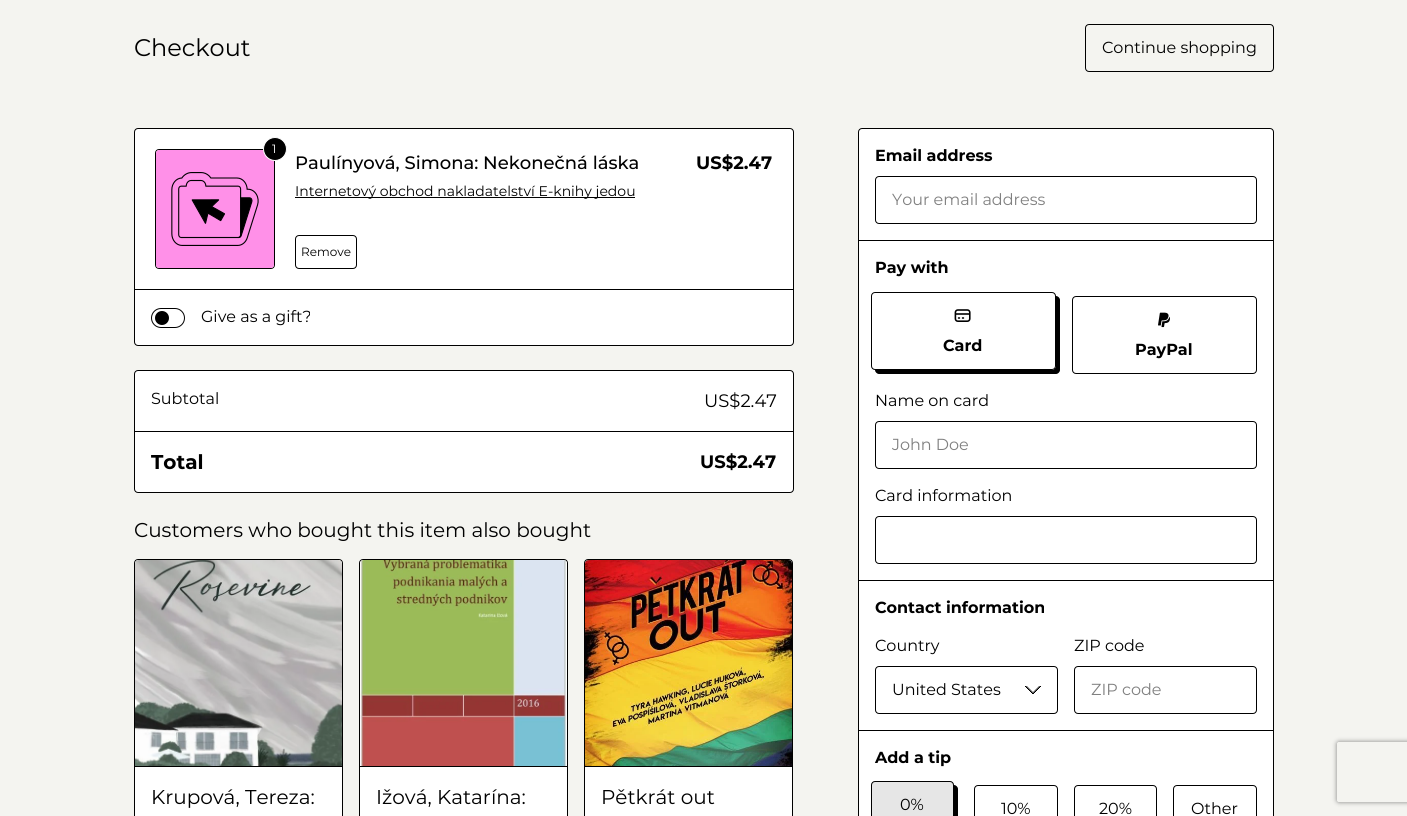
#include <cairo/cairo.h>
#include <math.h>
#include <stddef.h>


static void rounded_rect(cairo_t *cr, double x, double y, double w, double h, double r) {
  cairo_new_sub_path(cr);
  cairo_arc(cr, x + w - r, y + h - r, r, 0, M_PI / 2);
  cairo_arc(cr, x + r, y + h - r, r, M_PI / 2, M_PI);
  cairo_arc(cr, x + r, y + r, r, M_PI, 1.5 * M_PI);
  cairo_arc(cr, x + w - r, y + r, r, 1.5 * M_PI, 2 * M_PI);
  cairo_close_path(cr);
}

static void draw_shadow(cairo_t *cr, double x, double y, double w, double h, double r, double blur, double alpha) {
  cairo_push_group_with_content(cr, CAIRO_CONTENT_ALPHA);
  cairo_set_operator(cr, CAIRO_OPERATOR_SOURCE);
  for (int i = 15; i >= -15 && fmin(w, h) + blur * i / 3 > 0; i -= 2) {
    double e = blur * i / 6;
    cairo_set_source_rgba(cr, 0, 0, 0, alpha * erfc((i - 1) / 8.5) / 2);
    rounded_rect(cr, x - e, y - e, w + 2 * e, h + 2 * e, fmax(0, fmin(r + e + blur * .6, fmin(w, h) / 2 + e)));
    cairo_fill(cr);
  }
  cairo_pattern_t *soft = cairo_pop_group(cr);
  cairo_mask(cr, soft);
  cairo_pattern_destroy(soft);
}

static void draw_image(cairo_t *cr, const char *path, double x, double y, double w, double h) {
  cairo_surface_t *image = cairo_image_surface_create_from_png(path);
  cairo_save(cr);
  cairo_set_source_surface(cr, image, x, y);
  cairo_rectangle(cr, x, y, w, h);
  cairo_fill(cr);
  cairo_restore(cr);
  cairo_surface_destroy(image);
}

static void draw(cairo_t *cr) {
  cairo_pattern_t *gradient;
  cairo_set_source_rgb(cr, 244 / 255.0, 244 / 255.0, 240 / 255.0);
  cairo_paint(cr);
  rounded_rect(cr, 1085.5, 24.5, 188, 47, 3.5);
  cairo_set_source_rgb(cr, 0, 0, 0);
  cairo_set_line_width(cr, 1);
  cairo_stroke(cr);
  cairo_set_source_rgb(cr, 1, 1, 1);
  rounded_rect(cr, 134.5, 128.5, 659, 217, 3.5);
  cairo_fill_preserve(cr);
  cairo_set_source_rgb(cr, 0, 0, 0);
  cairo_stroke(cr);
  rounded_rect(cr, 155.5, 149.5, 119, 119, 3.5);
  cairo_stroke(cr);
  draw_image(cr, "images/1.png", 156, 150, 118, 118);
  cairo_arc(cr, 275, 149, 11.5, 0, 2 * M_PI);
  cairo_fill_preserve(cr);
  cairo_set_source_rgb(cr, 1, 1, 1);
  cairo_stroke(cr);
  cairo_set_source_rgb(cr, 0, 0, 0);
  cairo_rectangle(cr, 295, 197, 340, 1);
  cairo_fill(cr);
  rounded_rect(cr, 295.5, 235.5, 61, 33, 3.5);
  cairo_stroke(cr);
  cairo_rectangle(cr, 135, 289, 658, 1);
  cairo_fill(cr);
  rounded_rect(cr, 151.5, 308.5, 33, 19, 9.5);
  cairo_stroke(cr);
  cairo_arc(cr, 162, 318, 7, 0, 2 * M_PI);
  cairo_fill(cr);
  cairo_set_source_rgb(cr, 1, 1, 1);
  rounded_rect(cr, 134.5, 370.5, 659, 122, 3.5);
  cairo_fill_preserve(cr);
  cairo_set_source_rgb(cr, 0, 0, 0);
  cairo_stroke(cr);
  cairo_rectangle(cr, 135, 431, 658, 1);
  cairo_fill(cr);
  cairo_set_source_rgb(cr, 1, 1, 1);
  cairo_new_path(cr);
  cairo_move_to(cr, 138, 559);
  cairo_line_to(cr, 339, 559);
  cairo_curve_to(cr, 341, 559, 343, 561, 343, 563);
  cairo_line_to(cr, 343, 816);
  cairo_line_to(cr, 134, 816);
  cairo_line_to(cr, 134, 563);
  cairo_curve_to(cr, 134, 561, 136, 559, 138, 559);
  cairo_close_path(cr);
  cairo_fill(cr);
  rounded_rect(cr, 134.5, 559.5, 208, 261, 3.5);
  cairo_set_source_rgb(cr, 0, 0, 0);
  cairo_stroke(cr);
  cairo_rectangle(cr, 135, 766, 207, 1);
  cairo_fill(cr);
  draw_image(cr, "images/2.png", 135, 560, 207, 206);
  cairo_set_source_rgb(cr, 1, 1, 1);
  cairo_new_path(cr);
  cairo_move_to(cr, 363, 559);
  cairo_line_to(cr, 564, 559);
  cairo_curve_to(cr, 566, 559, 568, 561, 568, 563);
  cairo_line_to(cr, 568, 816);
  cairo_line_to(cr, 359, 816);
  cairo_line_to(cr, 359, 563);
  cairo_curve_to(cr, 359, 561, 361, 559, 363, 559);
  cairo_close_path(cr);
  cairo_fill(cr);
  rounded_rect(cr, 359.5, 559.5, 208, 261, 3.5);
  cairo_set_source_rgb(cr, 0, 0, 0);
  cairo_stroke(cr);
  cairo_rectangle(cr, 360, 766, 207, 1);
  cairo_fill(cr);
  draw_image(cr, "images/3.png", 360, 560, 207, 206);
  cairo_set_source_rgb(cr, 1, 1, 1);
  cairo_new_path(cr);
  cairo_move_to(cr, 588, 559);
  cairo_line_to(cr, 789, 559);
  cairo_curve_to(cr, 791, 559, 793, 561, 793, 563);
  cairo_line_to(cr, 793, 816);
  cairo_line_to(cr, 584, 816);
  cairo_line_to(cr, 584, 563);
  cairo_curve_to(cr, 584, 561, 586, 559, 588, 559);
  cairo_close_path(cr);
  cairo_fill(cr);
  rounded_rect(cr, 584.5, 559.5, 208, 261, 3.5);
  cairo_set_source_rgb(cr, 0, 0, 0);
  cairo_stroke(cr);
  cairo_rectangle(cr, 585, 766, 207, 1);
  cairo_fill(cr);
  draw_image(cr, "images/4.png", 585, 560, 207, 206);
  cairo_set_source_rgb(cr, 1, 1, 1);
  cairo_new_path(cr);
  cairo_move_to(cr, 862, 128);
  cairo_line_to(cr, 1270, 128);
  cairo_curve_to(cr, 1272, 128, 1274, 130, 1274, 132);
  cairo_line_to(cr, 1274, 816);
  cairo_line_to(cr, 858, 816);
  cairo_line_to(cr, 858, 132);
  cairo_curve_to(cr, 858, 130, 860, 128, 862, 128);
  cairo_close_path(cr);
  cairo_fill(cr);
  rounded_rect(cr, 858.5, 128.5, 415, 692, 3.5);
  cairo_set_source_rgb(cr, 0, 0, 0);
  cairo_stroke(cr);
  rounded_rect(cr, 875.5, 176.5, 381, 47, 3.5);
  cairo_stroke(cr);
  cairo_rectangle(cr, 859, 240, 414, 1);
  cairo_fill(cr);
  cairo_new_path(cr);
  cairo_move_to(cr, 875, 370);
  cairo_curve_to(cr, 875, 372, 877, 374, 879, 374);
  cairo_line_to(cr, 1056, 374);
  cairo_curve_to(cr, 1058, 374, 1060, 372, 1060, 370);
  cairo_line_to(cr, 1060, 300);
  cairo_curve_to(cr, 1060, 298, 1058, 296, 1056, 296);
  cairo_line_to(cr, 1056, 366);
  cairo_curve_to(cr, 1056, 368, 1054, 370, 1052, 370);
  cairo_close_path(cr);
  cairo_fill(cr);
  cairo_set_source_rgb(cr, 1, 1, 1);
  rounded_rect(cr, 871.5, 292.5, 184, 77, 3.5);
  cairo_fill_preserve(cr);
  cairo_set_source_rgb(cr, 0, 0, 0);
  cairo_stroke(cr);
  draw_image(cr, "images/5.png", 954, 309, 17, 13);
  rounded_rect(cr, 1072.5, 296.5, 184, 77, 3.5);
  cairo_stroke(cr);
  draw_image(cr, "images/6.png", 1158, 312, 12, 16);
  rounded_rect(cr, 875.5, 421.5, 381, 47, 3.5);
  cairo_stroke(cr);
  rounded_rect(cr, 875.5, 516.5, 381, 47, 3.5);
  cairo_stroke(cr);
  cairo_rectangle(cr, 859, 580, 414, 1);
  cairo_fill(cr);
  gradient = cairo_pattern_create_linear(1041, 694, 1033, 686);
  cairo_pattern_add_color_stop_rgba(gradient, 0.5, 1, 1, 1, 1);
  cairo_pattern_add_color_stop_rgba(gradient, 0.5, 0, 0, 0, 1);
  cairo_pattern_add_color_stop_rgba(gradient, 0.68, 1, 1, 1, 1);
  cairo_set_source(cr, gradient);
  cairo_pattern_destroy(gradient);
  cairo_rectangle(cr, 1033, 686, 8, 8);
  cairo_fill(cr);
  gradient = cairo_pattern_create_linear(1025, 694, 1033, 686);
  cairo_pattern_add_color_stop_rgba(gradient, 0.5, 1, 1, 1, 1);
  cairo_pattern_add_color_stop_rgba(gradient, 0.5, 0, 0, 0, 1);
  cairo_pattern_add_color_stop_rgba(gradient, 0.68, 1, 1, 1, 1);
  cairo_set_source(cr, gradient);
  cairo_pattern_destroy(gradient);
  cairo_rectangle(cr, 1025, 686, 8, 8);
  cairo_fill(cr);
  rounded_rect(cr, 875.5, 666.5, 182, 47, 3.5);
  cairo_set_source_rgb(cr, 0, 0, 0);
  cairo_stroke(cr);
  rounded_rect(cr, 1074.5, 666.5, 182, 47, 3.5);
  cairo_stroke(cr);
  cairo_rectangle(cr, 859, 730, 414, 1);
  cairo_fill(cr);
  cairo_new_path(cr);
  cairo_move_to(cr, 875, 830);
  cairo_curve_to(cr, 875, 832, 877, 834, 879, 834);
  cairo_line_to(cr, 954, 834);
  cairo_curve_to(cr, 956, 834, 958, 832, 958, 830);
  cairo_line_to(cr, 958, 789);
  cairo_curve_to(cr, 958, 787, 956, 785, 954, 785);
  cairo_line_to(cr, 954, 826);
  cairo_curve_to(cr, 954, 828, 952, 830, 950, 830);
  cairo_close_path(cr);
  cairo_fill(cr);
  cairo_set_source_rgb(cr, 230 / 255.0, 230 / 255.0, 230 / 255.0);
  cairo_new_path(cr);
  cairo_move_to(cr, 875, 781);
  cairo_line_to(cr, 950, 781);
  cairo_curve_to(cr, 952, 781, 954, 783, 954, 785);
  cairo_line_to(cr, 954, 816);
  cairo_line_to(cr, 871, 816);
  cairo_line_to(cr, 871, 785);
  cairo_curve_to(cr, 871, 783, 873, 781, 875, 781);
  cairo_close_path(cr);
  cairo_fill(cr);
  rounded_rect(cr, 871.5, 781.5, 82, 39, 3.5);
  cairo_set_source_rgb(cr, 0, 0, 0);
  cairo_stroke(cr);
  rounded_rect(cr, 974.5, 785.5, 83, 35, 3.5);
  cairo_stroke(cr);
  rounded_rect(cr, 1074.5, 785.5, 82, 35, 3.5);
  cairo_stroke(cr);
  rounded_rect(cr, 1173.5, 785.5, 83, 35, 3.5);
  cairo_stroke(cr);
  cairo_save(cr);
  cairo_set_fill_rule(cr, CAIRO_FILL_RULE_EVEN_ODD);
  cairo_new_path(cr);
  cairo_move_to(cr, 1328, 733);
  cairo_line_to(cr, 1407, 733);
  cairo_line_to(cr, 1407, 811);
  cairo_line_to(cr, 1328, 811);
  cairo_close_path(cr);
  cairo_move_to(cr, 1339, 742);
  cairo_line_to(cr, 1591, 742);
  cairo_curve_to(cr, 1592, 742, 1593, 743, 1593, 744);
  cairo_line_to(cr, 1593, 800);
  cairo_curve_to(cr, 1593, 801, 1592, 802, 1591, 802);
  cairo_line_to(cr, 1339, 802);
  cairo_curve_to(cr, 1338, 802, 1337, 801, 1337, 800);
  cairo_line_to(cr, 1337, 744);
  cairo_curve_to(cr, 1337, 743, 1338, 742, 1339, 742);
  cairo_close_path(cr);
  cairo_clip(cr);
  cairo_set_source_rgb(cr, 128 / 255.0, 128 / 255.0, 128 / 255.0);
  draw_shadow(cr, 1337, 742, 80, 60, 2, 2.5, 1);
  cairo_restore(cr);
  cairo_select_font_face(cr, "Montserrat", CAIRO_FONT_SLANT_NORMAL, CAIRO_FONT_WEIGHT_NORMAL);
  cairo_set_font_size(cr, 24);
  cairo_move_to(cr, 134, 56);
  cairo_show_text(cr, "Checkout");
  cairo_set_font_size(cr, 16);
  cairo_move_to(cr, 1102, 53);
  cairo_show_text(cr, "Continue shopping");
  cairo_set_font_size(cr, 12);
  cairo_set_source_rgb(cr, 1, 1, 1);
  cairo_move_to(cr, 272, 153);
  cairo_show_text(cr, "1");
  cairo_select_font_face(cr, "Montserrat Medium", CAIRO_FONT_SLANT_NORMAL, CAIRO_FONT_WEIGHT_NORMAL);
  cairo_set_font_size(cr, 18);
  cairo_set_source_rgb(cr, 0, 0, 0);
  cairo_move_to(cr, 295, 169);
  cairo_show_text(cr, "Paulínyová, Simona: Nekonečná láska");
  cairo_select_font_face(cr, "Montserrat", CAIRO_FONT_SLANT_NORMAL, CAIRO_FONT_WEIGHT_NORMAL);
  cairo_set_font_size(cr, 14);
  cairo_move_to(cr, 295, 196);
  cairo_show_text(cr, "Internetový obchod nakladatelství E-knihy jedou");
  cairo_set_font_size(cr, 12);
  cairo_move_to(cr, 301, 256);
  cairo_show_text(cr, "Remove");
  cairo_select_font_face(cr, "Montserrat", CAIRO_FONT_SLANT_NORMAL, CAIRO_FONT_WEIGHT_BOLD);
  cairo_set_font_size(cr, 18);
  cairo_move_to(cr, 696, 169);
  cairo_show_text(cr, "US$2.47");
  cairo_select_font_face(cr, "Montserrat", CAIRO_FONT_SLANT_NORMAL, CAIRO_FONT_WEIGHT_NORMAL);
  cairo_set_font_size(cr, 16);
  cairo_move_to(cr, 201, 322);
  cairo_show_text(cr, "Give as a gift?");
  cairo_move_to(cr, 151, 404);
  cairo_show_text(cr, "Subtotal");
  cairo_set_font_size(cr, 18);
  cairo_move_to(cr, 704, 407);
  cairo_show_text(cr, "US$2.47");
  cairo_select_font_face(cr, "Montserrat", CAIRO_FONT_SLANT_NORMAL, CAIRO_FONT_WEIGHT_BOLD);
  cairo_set_font_size(cr, 20);
  cairo_move_to(cr, 151, 469);
  cairo_show_text(cr, "Total");
  cairo_set_font_size(cr, 18);
  cairo_move_to(cr, 700, 468);
  cairo_show_text(cr, "US$2.47");
  cairo_select_font_face(cr, "Montserrat", CAIRO_FONT_SLANT_NORMAL, CAIRO_FONT_WEIGHT_NORMAL);
  cairo_set_font_size(cr, 20);
  cairo_move_to(cr, 134, 537);
  cairo_show_text(cr, "Customers who bought this item also bought");
  cairo_move_to(cr, 151, 804);
  cairo_show_text(cr, "Krupová, Tereza:");
  cairo_move_to(cr, 376, 804);
  cairo_show_text(cr, "Ižová, Katarína:");
  cairo_move_to(cr, 601, 804);
  cairo_show_text(cr, "Pětkrát out");
  cairo_select_font_face(cr, "Montserrat", CAIRO_FONT_SLANT_NORMAL, CAIRO_FONT_WEIGHT_BOLD);
  cairo_set_font_size(cr, 16);
  cairo_move_to(cr, 875, 161);
  cairo_show_text(cr, "Email address");
  cairo_select_font_face(cr, "Montserrat", CAIRO_FONT_SLANT_NORMAL, CAIRO_FONT_WEIGHT_NORMAL);
  cairo_set_source_rgb(cr, 128 / 255.0, 128 / 255.0, 128 / 255.0);
  cairo_move_to(cr, 892, 205);
  cairo_show_text(cr, "Your email address");
  cairo_select_font_face(cr, "Montserrat", CAIRO_FONT_SLANT_NORMAL, CAIRO_FONT_WEIGHT_BOLD);
  cairo_set_source_rgb(cr, 0, 0, 0);
  cairo_move_to(cr, 875, 273);
  cairo_show_text(cr, "Pay with");
  cairo_move_to(cr, 943, 351);
  cairo_show_text(cr, "Card");
  cairo_move_to(cr, 1135, 355);
  cairo_show_text(cr, "PayPal");
  cairo_select_font_face(cr, "Montserrat", CAIRO_FONT_SLANT_NORMAL, CAIRO_FONT_WEIGHT_NORMAL);
  cairo_move_to(cr, 875, 406);
  cairo_show_text(cr, "Name on card");
  cairo_set_source_rgb(cr, 128 / 255.0, 128 / 255.0, 128 / 255.0);
  cairo_move_to(cr, 892, 450);
  cairo_show_text(cr, "John Doe");
  cairo_set_source_rgb(cr, 0, 0, 0);
  cairo_move_to(cr, 875, 501);
  cairo_show_text(cr, "Card information");
  cairo_select_font_face(cr, "Montserrat", CAIRO_FONT_SLANT_NORMAL, CAIRO_FONT_WEIGHT_BOLD);
  cairo_move_to(cr, 875, 613);
  cairo_show_text(cr, "Contact information");
  cairo_select_font_face(cr, "Montserrat", CAIRO_FONT_SLANT_NORMAL, CAIRO_FONT_WEIGHT_NORMAL);
  cairo_move_to(cr, 875, 651);
  cairo_show_text(cr, "Country");
  cairo_move_to(cr, 892, 695);
  cairo_show_text(cr, "United States");
  cairo_move_to(cr, 1074, 651);
  cairo_show_text(cr, "ZIP code");
  cairo_set_source_rgb(cr, 128 / 255.0, 128 / 255.0, 128 / 255.0);
  cairo_move_to(cr, 1091, 695);
  cairo_show_text(cr, "ZIP code");
  cairo_select_font_face(cr, "Montserrat", CAIRO_FONT_SLANT_NORMAL, CAIRO_FONT_WEIGHT_BOLD);
  cairo_set_source_rgb(cr, 0, 0, 0);
  cairo_move_to(cr, 875, 763);
  cairo_show_text(cr, "Add a tip");
  cairo_select_font_face(cr, "Montserrat", CAIRO_FONT_SLANT_NORMAL, CAIRO_FONT_WEIGHT_NORMAL);
  cairo_move_to(cr, 900, 810);
  cairo_show_text(cr, "0%");
  cairo_move_to(cr, 1001, 814);
  cairo_show_text(cr, "10%");
  cairo_move_to(cr, 1099, 814);
  cairo_show_text(cr, "20%");
  cairo_move_to(cr, 1191, 814);
  cairo_show_text(cr, "Other");
}

int main(void) {
  cairo_surface_t *surface = cairo_image_surface_create(CAIRO_FORMAT_RGB24, 1407, 816);
  cairo_t *cr = cairo_create(surface);
  cairo_font_options_t *options = cairo_font_options_create();
  cairo_font_options_set_hint_metrics(options, CAIRO_HINT_METRICS_OFF);
  cairo_font_options_set_hint_style(options, CAIRO_HINT_STYLE_NONE);
  cairo_set_font_options(cr, options);
  cairo_set_miter_limit(cr, 4);
  draw(cr);
  cairo_surface_write_to_png(surface, "out.png");
  cairo_font_options_destroy(options);
  cairo_destroy(cr);
  cairo_surface_destroy(surface);
  return 0;
}
